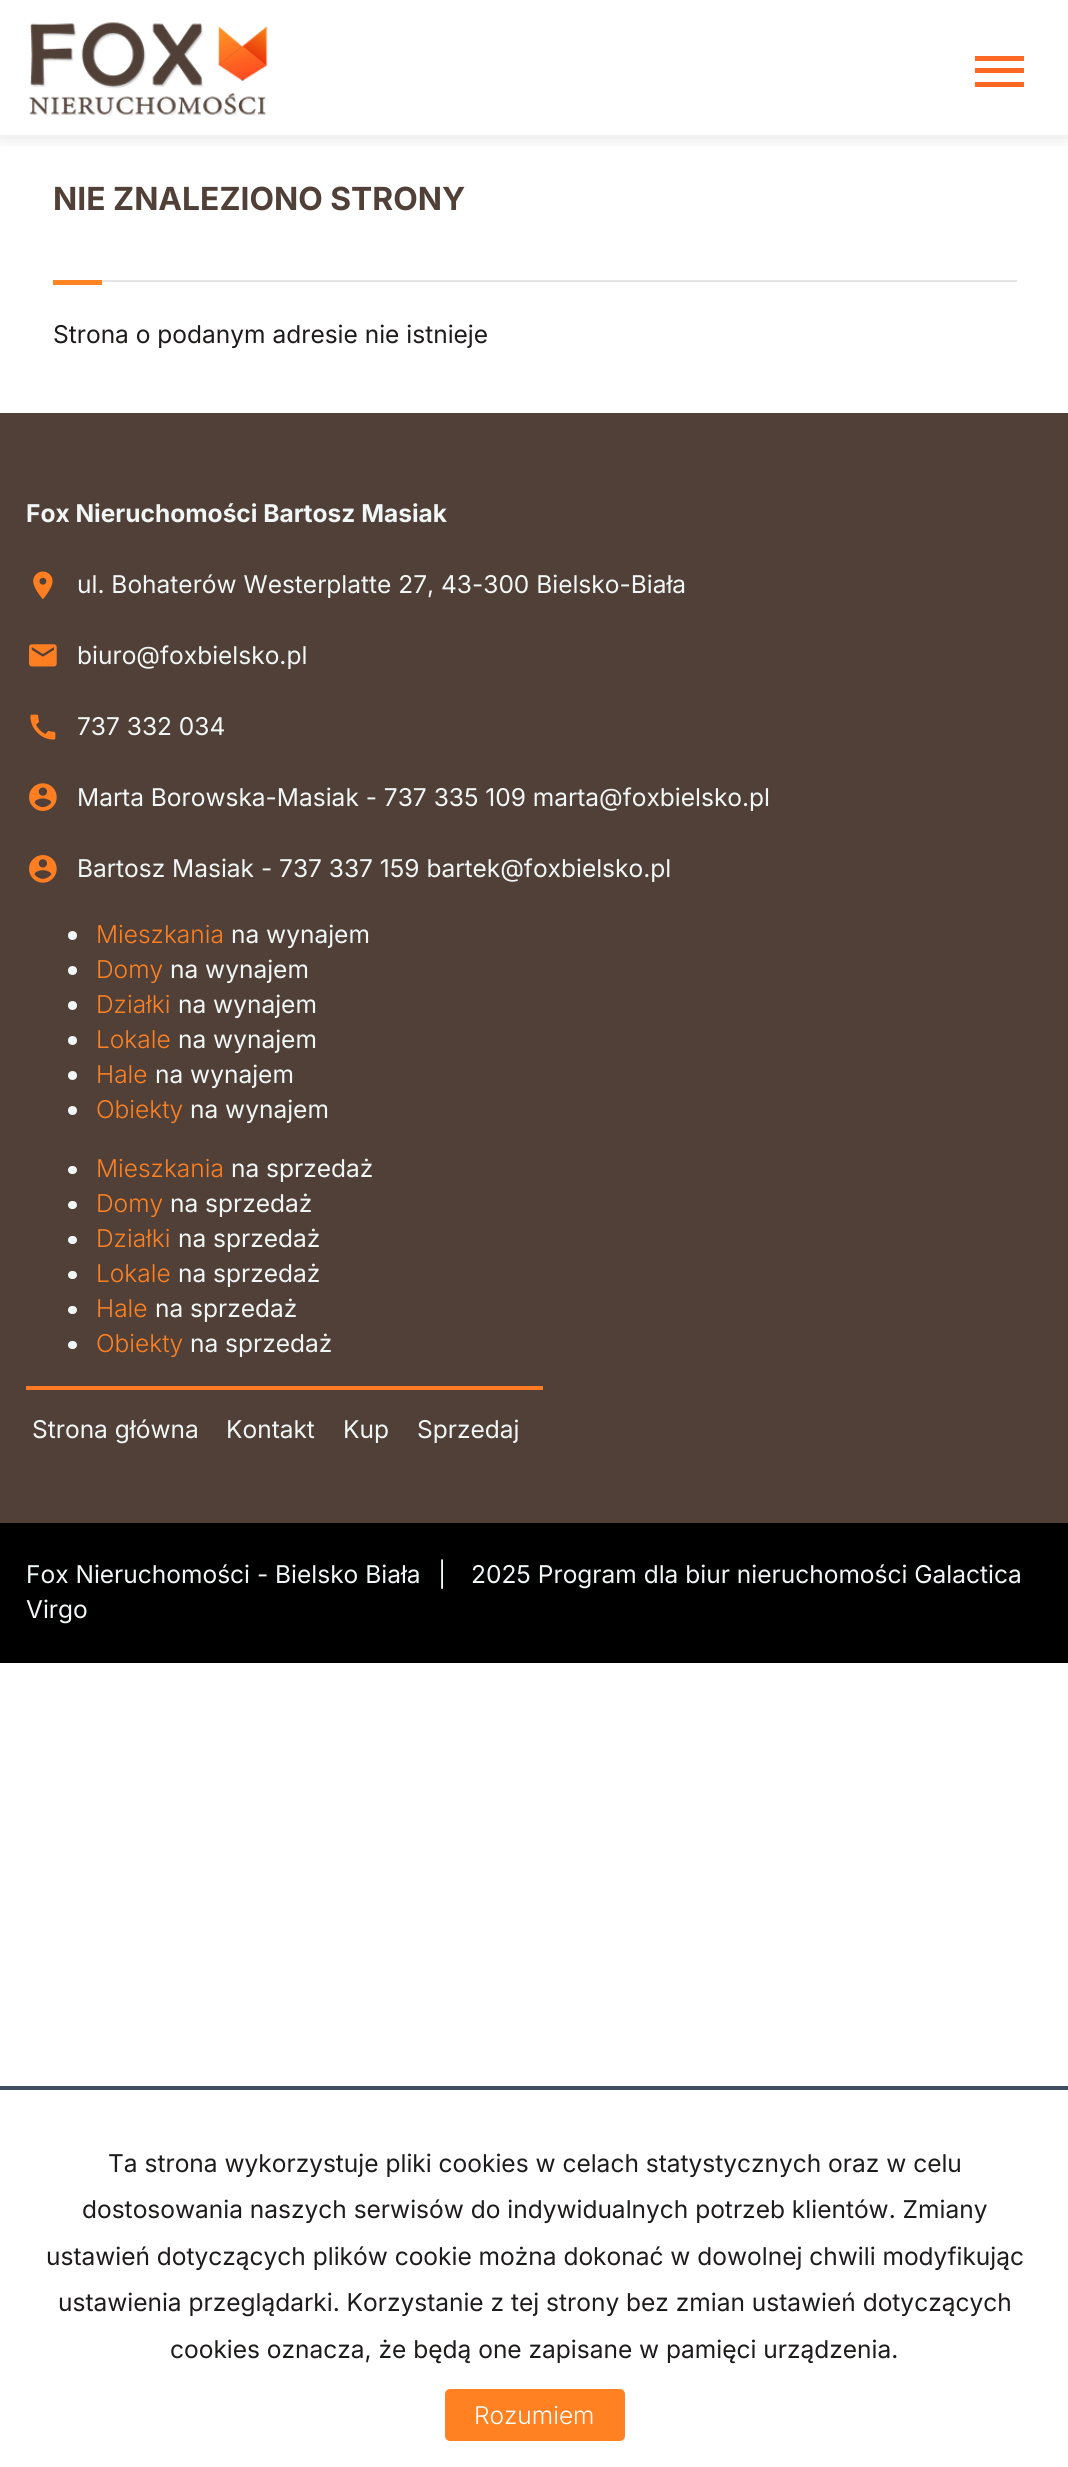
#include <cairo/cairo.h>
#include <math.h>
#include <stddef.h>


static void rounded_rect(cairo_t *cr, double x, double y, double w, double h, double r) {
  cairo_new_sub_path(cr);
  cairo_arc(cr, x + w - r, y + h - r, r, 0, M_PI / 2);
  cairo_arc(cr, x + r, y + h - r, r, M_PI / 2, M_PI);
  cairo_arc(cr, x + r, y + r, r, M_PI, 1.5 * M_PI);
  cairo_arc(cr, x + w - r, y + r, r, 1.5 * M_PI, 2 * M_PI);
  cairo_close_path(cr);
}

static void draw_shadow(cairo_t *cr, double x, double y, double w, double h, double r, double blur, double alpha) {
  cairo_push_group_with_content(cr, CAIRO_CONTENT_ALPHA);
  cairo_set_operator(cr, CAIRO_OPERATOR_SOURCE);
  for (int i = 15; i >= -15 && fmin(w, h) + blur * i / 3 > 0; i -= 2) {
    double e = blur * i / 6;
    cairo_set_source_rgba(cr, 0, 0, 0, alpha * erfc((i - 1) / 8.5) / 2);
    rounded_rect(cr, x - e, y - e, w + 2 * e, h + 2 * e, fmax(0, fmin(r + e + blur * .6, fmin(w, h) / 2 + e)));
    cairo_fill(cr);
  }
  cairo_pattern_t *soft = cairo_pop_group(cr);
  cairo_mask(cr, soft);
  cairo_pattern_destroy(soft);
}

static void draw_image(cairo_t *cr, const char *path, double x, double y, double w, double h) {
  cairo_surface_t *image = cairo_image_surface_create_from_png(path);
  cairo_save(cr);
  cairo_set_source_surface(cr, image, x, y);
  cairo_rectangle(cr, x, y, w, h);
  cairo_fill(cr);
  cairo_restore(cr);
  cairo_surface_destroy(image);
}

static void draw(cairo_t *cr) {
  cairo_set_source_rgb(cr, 1, 1, 1);
  cairo_paint(cr);
  cairo_save(cr);
  cairo_rectangle(cr, 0, 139, 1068, 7);
  cairo_clip(cr);
  cairo_set_source_rgb(cr, 0, 0, 0);
  draw_shadow(cr, 0, 0, 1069, 138, 0, 9, 0.1);
  cairo_restore(cr);
  cairo_set_source_rgb(cr, 242 / 255.0, 242 / 255.0, 242 / 255.0);
  cairo_rectangle(cr, 0, 135, 1068, 4);
  cairo_fill(cr);
  draw_image(cr, "images/1.png", 29, 22, 239, 94);
  cairo_set_source_rgb(cr, 1, 104 / 255.0, 34 / 255.0);
  cairo_rectangle(cr, 975, 56, 49, 5);
  cairo_fill(cr);
  cairo_rectangle(cr, 975, 68, 49, 5);
  cairo_fill(cr);
  cairo_rectangle(cr, 975, 82, 49, 5);
  cairo_fill(cr);
  cairo_set_source_rgb(cr, 230 / 255.0, 230 / 255.0, 230 / 255.0);
  cairo_rectangle(cr, 102, 280, 915, 2);
  cairo_fill(cr);
  cairo_set_source_rgb(cr, 1, 132 / 255.0, 36 / 255.0);
  cairo_rectangle(cr, 53, 280, 49, 5);
  cairo_fill(cr);
  cairo_set_source_rgb(cr, 80 / 255.0, 64 / 255.0, 55 / 255.0);
  cairo_rectangle(cr, 0, 413, 1068, 1110);
  cairo_fill(cr);
  draw_image(cr, "images/2.png", 33, 571, 20, 29);
  draw_image(cr, "images/3.png", 29, 644, 28, 23);
  draw_image(cr, "images/4.png", 30, 714, 26, 26);
  draw_image(cr, "images/5.png", 29, 783, 28, 28);
  draw_image(cr, "images/6.png", 29, 855, 28, 28);
  cairo_set_source_rgb(cr, 241 / 255.0, 247 / 255.0, 247 / 255.0);
  cairo_arc(cr, 72.5, 935.5, 4.5, 0, 2 * M_PI);
  cairo_fill(cr);
  cairo_arc(cr, 72.5, 970.5, 4.5, 0, 2 * M_PI);
  cairo_fill(cr);
  cairo_arc(cr, 72.5, 1005.5, 4.5, 0, 2 * M_PI);
  cairo_fill(cr);
  cairo_arc(cr, 72.5, 1040.5, 4.5, 0, 2 * M_PI);
  cairo_fill(cr);
  cairo_arc(cr, 72.5, 1075.5, 4.5, 0, 2 * M_PI);
  cairo_fill(cr);
  cairo_arc(cr, 72.5, 1110.5, 4.5, 0, 2 * M_PI);
  cairo_fill(cr);
  rounded_rect(cr, 68, 1166, 9, 8, 4);
  cairo_fill(cr);
  rounded_rect(cr, 68, 1201, 9, 8, 4);
  cairo_fill(cr);
  rounded_rect(cr, 68, 1236, 9, 8, 4);
  cairo_fill(cr);
  rounded_rect(cr, 68, 1271, 9, 8, 4);
  cairo_fill(cr);
  rounded_rect(cr, 68, 1306, 9, 8, 4);
  cairo_fill(cr);
  rounded_rect(cr, 68, 1341, 9, 8, 4);
  cairo_fill(cr);
  cairo_set_source_rgb(cr, 1, 122 / 255.0, 34 / 255.0);
  cairo_rectangle(cr, 26, 1386, 517, 4);
  cairo_fill(cr);
  cairo_set_source_rgb(cr, 0, 0, 0);
  cairo_rectangle(cr, 0, 1523, 1068, 140);
  cairo_fill(cr);
  cairo_set_source_rgb(cr, 65 / 255.0, 76 / 255.0, 94 / 255.0);
  cairo_rectangle(cr, 0, 2086, 1068, 4);
  cairo_fill(cr);
  cairo_set_source_rgb(cr, 1, 129 / 255.0, 34 / 255.0);
  rounded_rect(cr, 447, 2391, 176, 48, 3);
  cairo_fill_preserve(cr);
  cairo_set_line_width(cr, 4);
  cairo_stroke(cr);
  cairo_select_font_face(cr, "Inter", CAIRO_FONT_SLANT_NORMAL, CAIRO_FONT_WEIGHT_BOLD);
  cairo_set_font_size(cr, 31.8);
  cairo_set_source_rgb(cr, 80 / 255.0, 64 / 255.0, 55 / 255.0);
  cairo_move_to(cr, 53, 210);
  cairo_show_text(cr, "NIE ZNALEZIONO STRONY");
  cairo_select_font_face(cr, "Inter", CAIRO_FONT_SLANT_NORMAL, CAIRO_FONT_WEIGHT_NORMAL);
  cairo_set_font_size(cr, 24.5);
  cairo_set_source_rgb(cr, 30 / 255.0, 27 / 255.0, 27 / 255.0);
  cairo_move_to(cr, 53, 343);
  cairo_show_text(cr, "Strona o podanym adresie nie istnieje");
  cairo_select_font_face(cr, "Inter", CAIRO_FONT_SLANT_NORMAL, CAIRO_FONT_WEIGHT_BOLD);
  cairo_set_source_rgb(cr, 241 / 255.0, 247 / 255.0, 247 / 255.0);
  cairo_move_to(cr, 26, 522);
  cairo_show_text(cr, "Fox Nieruchomości Bartosz Masiak");
  cairo_select_font_face(cr, "Inter", CAIRO_FONT_SLANT_NORMAL, CAIRO_FONT_WEIGHT_NORMAL);
  cairo_move_to(cr, 77, 593);
  cairo_show_text(cr, "ul. Bohaterów Westerplatte 27, 43-300 Bielsko-Biała");
  cairo_move_to(cr, 77, 664);
  cairo_show_text(cr, "biuro@foxbielsko.pl");
  cairo_move_to(cr, 77, 735);
  cairo_show_text(cr, "737 332 034");
  cairo_move_to(cr, 77, 806);
  cairo_show_text(cr, "Marta Borowska-Masiak - 737 335 109 marta@foxbielsko.pl");
  cairo_move_to(cr, 77, 877);
  cairo_show_text(cr, "Bartosz Masiak - 737 337 159 bartek@foxbielsko.pl");
  cairo_select_font_face(cr, "Inter Light", CAIRO_FONT_SLANT_NORMAL, CAIRO_FONT_WEIGHT_NORMAL);
  cairo_set_source_rgb(cr, 1, 129 / 255.0, 34 / 255.0);
  cairo_move_to(cr, 96, 943);
  cairo_show_text(cr, "Mieszkania");
  cairo_select_font_face(cr, "Inter", CAIRO_FONT_SLANT_NORMAL, CAIRO_FONT_WEIGHT_NORMAL);
  cairo_set_source_rgb(cr, 241 / 255.0, 247 / 255.0, 247 / 255.0);
  cairo_move_to(cr, 231, 943);
  cairo_show_text(cr, "na wynajem");
  cairo_select_font_face(cr, "Inter Light", CAIRO_FONT_SLANT_NORMAL, CAIRO_FONT_WEIGHT_NORMAL);
  cairo_set_source_rgb(cr, 1, 129 / 255.0, 34 / 255.0);
  cairo_move_to(cr, 96, 978);
  cairo_show_text(cr, "Domy");
  cairo_select_font_face(cr, "Inter", CAIRO_FONT_SLANT_NORMAL, CAIRO_FONT_WEIGHT_NORMAL);
  cairo_set_source_rgb(cr, 241 / 255.0, 247 / 255.0, 247 / 255.0);
  cairo_move_to(cr, 170, 978);
  cairo_show_text(cr, "na wynajem");
  cairo_select_font_face(cr, "Inter Light", CAIRO_FONT_SLANT_NORMAL, CAIRO_FONT_WEIGHT_NORMAL);
  cairo_set_source_rgb(cr, 1, 129 / 255.0, 34 / 255.0);
  cairo_move_to(cr, 96, 1013);
  cairo_show_text(cr, "Działki");
  cairo_select_font_face(cr, "Inter", CAIRO_FONT_SLANT_NORMAL, CAIRO_FONT_WEIGHT_NORMAL);
  cairo_set_source_rgb(cr, 241 / 255.0, 247 / 255.0, 247 / 255.0);
  cairo_move_to(cr, 178, 1013);
  cairo_show_text(cr, "na wynajem");
  cairo_select_font_face(cr, "Inter Light", CAIRO_FONT_SLANT_NORMAL, CAIRO_FONT_WEIGHT_NORMAL);
  cairo_set_source_rgb(cr, 1, 129 / 255.0, 34 / 255.0);
  cairo_move_to(cr, 96, 1048);
  cairo_show_text(cr, "Lokale");
  cairo_select_font_face(cr, "Inter", CAIRO_FONT_SLANT_NORMAL, CAIRO_FONT_WEIGHT_NORMAL);
  cairo_set_source_rgb(cr, 241 / 255.0, 247 / 255.0, 247 / 255.0);
  cairo_move_to(cr, 178, 1048);
  cairo_show_text(cr, "na wynajem");
  cairo_select_font_face(cr, "Inter Light", CAIRO_FONT_SLANT_NORMAL, CAIRO_FONT_WEIGHT_NORMAL);
  cairo_set_source_rgb(cr, 1, 129 / 255.0, 34 / 255.0);
  cairo_move_to(cr, 96, 1083);
  cairo_show_text(cr, "Hale");
  cairo_select_font_face(cr, "Inter", CAIRO_FONT_SLANT_NORMAL, CAIRO_FONT_WEIGHT_NORMAL);
  cairo_set_source_rgb(cr, 241 / 255.0, 247 / 255.0, 247 / 255.0);
  cairo_move_to(cr, 155, 1083);
  cairo_show_text(cr, "na wynajem");
  cairo_select_font_face(cr, "Inter Light", CAIRO_FONT_SLANT_NORMAL, CAIRO_FONT_WEIGHT_NORMAL);
  cairo_set_source_rgb(cr, 1, 129 / 255.0, 34 / 255.0);
  cairo_move_to(cr, 96, 1118);
  cairo_show_text(cr, "Obiekty");
  cairo_select_font_face(cr, "Inter", CAIRO_FONT_SLANT_NORMAL, CAIRO_FONT_WEIGHT_NORMAL);
  cairo_set_source_rgb(cr, 241 / 255.0, 247 / 255.0, 247 / 255.0);
  cairo_move_to(cr, 190, 1118);
  cairo_show_text(cr, "na wynajem");
  cairo_select_font_face(cr, "Inter Light", CAIRO_FONT_SLANT_NORMAL, CAIRO_FONT_WEIGHT_NORMAL);
  cairo_set_source_rgb(cr, 1, 129 / 255.0, 34 / 255.0);
  cairo_move_to(cr, 96, 1177);
  cairo_show_text(cr, "Mieszkania");
  cairo_select_font_face(cr, "Inter", CAIRO_FONT_SLANT_NORMAL, CAIRO_FONT_WEIGHT_NORMAL);
  cairo_set_source_rgb(cr, 241 / 255.0, 247 / 255.0, 247 / 255.0);
  cairo_move_to(cr, 231, 1177);
  cairo_show_text(cr, "na sprzedaż");
  cairo_select_font_face(cr, "Inter Light", CAIRO_FONT_SLANT_NORMAL, CAIRO_FONT_WEIGHT_NORMAL);
  cairo_set_source_rgb(cr, 1, 129 / 255.0, 34 / 255.0);
  cairo_move_to(cr, 96, 1212);
  cairo_show_text(cr, "Domy");
  cairo_select_font_face(cr, "Inter", CAIRO_FONT_SLANT_NORMAL, CAIRO_FONT_WEIGHT_NORMAL);
  cairo_set_source_rgb(cr, 241 / 255.0, 247 / 255.0, 247 / 255.0);
  cairo_move_to(cr, 170, 1212);
  cairo_show_text(cr, "na sprzedaż");
  cairo_select_font_face(cr, "Inter Light", CAIRO_FONT_SLANT_NORMAL, CAIRO_FONT_WEIGHT_NORMAL);
  cairo_set_source_rgb(cr, 1, 129 / 255.0, 34 / 255.0);
  cairo_move_to(cr, 96, 1247);
  cairo_show_text(cr, "Działki");
  cairo_select_font_face(cr, "Inter", CAIRO_FONT_SLANT_NORMAL, CAIRO_FONT_WEIGHT_NORMAL);
  cairo_set_source_rgb(cr, 241 / 255.0, 247 / 255.0, 247 / 255.0);
  cairo_move_to(cr, 178, 1247);
  cairo_show_text(cr, "na sprzedaż");
  cairo_select_font_face(cr, "Inter Light", CAIRO_FONT_SLANT_NORMAL, CAIRO_FONT_WEIGHT_NORMAL);
  cairo_set_source_rgb(cr, 1, 129 / 255.0, 34 / 255.0);
  cairo_move_to(cr, 96, 1282);
  cairo_show_text(cr, "Lokale");
  cairo_select_font_face(cr, "Inter", CAIRO_FONT_SLANT_NORMAL, CAIRO_FONT_WEIGHT_NORMAL);
  cairo_set_source_rgb(cr, 241 / 255.0, 247 / 255.0, 247 / 255.0);
  cairo_move_to(cr, 178, 1282);
  cairo_show_text(cr, "na sprzedaż");
  cairo_select_font_face(cr, "Inter Light", CAIRO_FONT_SLANT_NORMAL, CAIRO_FONT_WEIGHT_NORMAL);
  cairo_set_source_rgb(cr, 1, 129 / 255.0, 34 / 255.0);
  cairo_move_to(cr, 96, 1317);
  cairo_show_text(cr, "Hale");
  cairo_select_font_face(cr, "Inter", CAIRO_FONT_SLANT_NORMAL, CAIRO_FONT_WEIGHT_NORMAL);
  cairo_set_source_rgb(cr, 241 / 255.0, 247 / 255.0, 247 / 255.0);
  cairo_move_to(cr, 155, 1317);
  cairo_show_text(cr, "na sprzedaż");
  cairo_select_font_face(cr, "Inter Light", CAIRO_FONT_SLANT_NORMAL, CAIRO_FONT_WEIGHT_NORMAL);
  cairo_set_source_rgb(cr, 1, 129 / 255.0, 34 / 255.0);
  cairo_move_to(cr, 96, 1352);
  cairo_show_text(cr, "Obiekty");
  cairo_select_font_face(cr, "Inter", CAIRO_FONT_SLANT_NORMAL, CAIRO_FONT_WEIGHT_NORMAL);
  cairo_set_source_rgb(cr, 241 / 255.0, 247 / 255.0, 247 / 255.0);
  cairo_move_to(cr, 190, 1352);
  cairo_show_text(cr, "na sprzedaż");
  cairo_move_to(cr, 32, 1438);
  cairo_show_text(cr, "Strona główna");
  cairo_move_to(cr, 226, 1438);
  cairo_show_text(cr, "Kontakt");
  cairo_move_to(cr, 343, 1438);
  cairo_show_text(cr, "Kup");
  cairo_move_to(cr, 417, 1438);
  cairo_show_text(cr, "Sprzedaj");
  cairo_move_to(cr, 26, 1583);
  cairo_show_text(cr, "Fox Nieruchomości - Bielsko Biała");
  cairo_move_to(cr, 438, 1583);
  cairo_show_text(cr, "|");
  cairo_move_to(cr, 471, 1583);
  cairo_show_text(cr, "2025 Program dla biur nieruchomości Galactica");
  cairo_move_to(cr, 26, 1618);
  cairo_show_text(cr, "Virgo");
  cairo_set_source_rgb(cr, 30 / 255.0, 27 / 255.0, 27 / 255.0);
  cairo_move_to(cr, 108, 2172);
  cairo_show_text(cr, "Ta strona wykorzystuje pliki cookies w celach statystycznych oraz w celu");
  cairo_move_to(cr, 82, 2218);
  cairo_show_text(cr, "dostosowania naszych serwisów do indywidualnych potrzeb klientów. Zmiany");
  cairo_move_to(cr, 46, 2265);
  cairo_show_text(cr, "ustawień dotyczących plików cookie można dokonać w dowolnej chwili modyfikując");
  cairo_move_to(cr, 58, 2311);
  cairo_show_text(cr, "ustawienia przeglądarki. Korzystanie z tej strony bez zmian ustawień dotyczących");
  cairo_move_to(cr, 170, 2358);
  cairo_show_text(cr, "cookies oznacza, że będą one zapisane w pamięci urządzenia.");
  cairo_select_font_face(cr, "Inter Light", CAIRO_FONT_SLANT_NORMAL, CAIRO_FONT_WEIGHT_NORMAL);
  cairo_set_source_rgb(cr, 1, 1, 1);
  cairo_move_to(cr, 474, 2424);
  cairo_show_text(cr, "Rozumiem");
}

int main(void) {
  cairo_surface_t *surface = cairo_image_surface_create(CAIRO_FORMAT_RGB24, 1068, 2467);
  cairo_t *cr = cairo_create(surface);
  cairo_font_options_t *options = cairo_font_options_create();
  cairo_font_options_set_hint_metrics(options, CAIRO_HINT_METRICS_OFF);
  cairo_font_options_set_hint_style(options, CAIRO_HINT_STYLE_NONE);
  cairo_set_font_options(cr, options);
  cairo_set_miter_limit(cr, 4);
  draw(cr);
  cairo_surface_write_to_png(surface, "out.png");
  cairo_font_options_destroy(options);
  cairo_destroy(cr);
  cairo_surface_destroy(surface);
  return 0;
}
